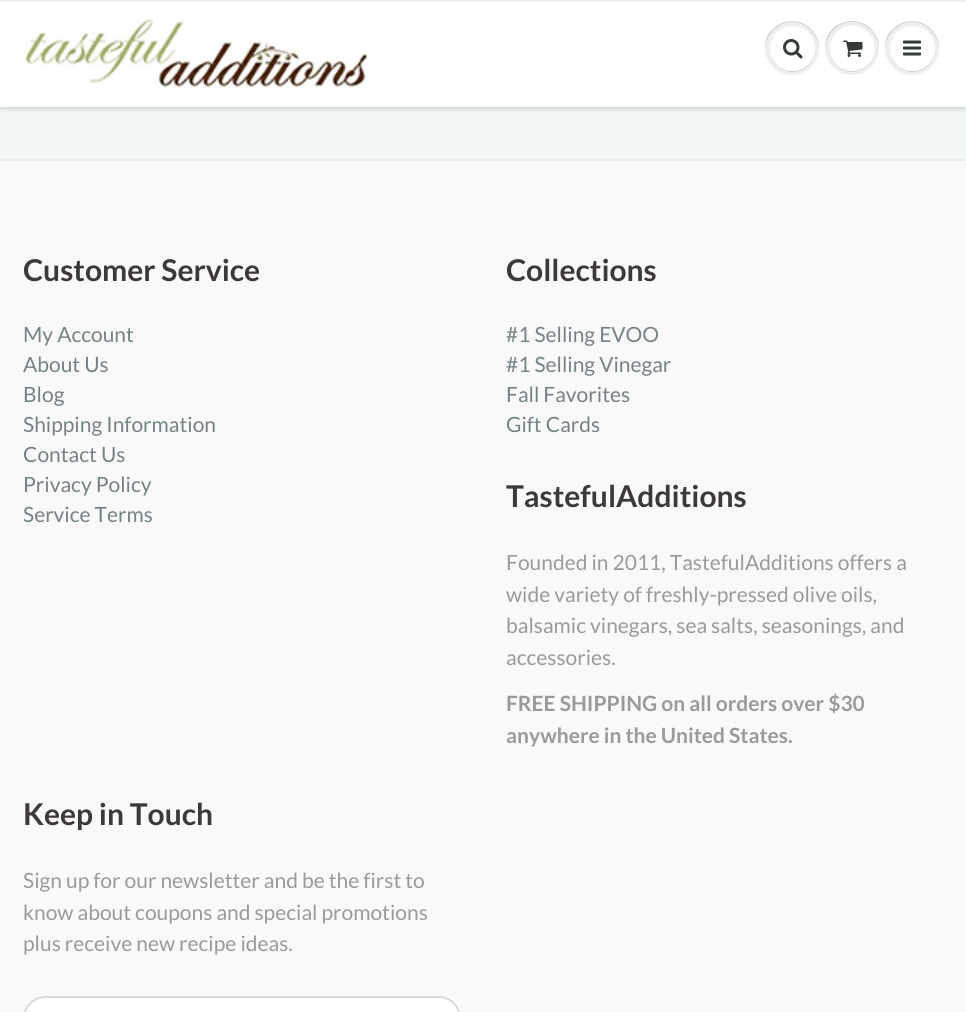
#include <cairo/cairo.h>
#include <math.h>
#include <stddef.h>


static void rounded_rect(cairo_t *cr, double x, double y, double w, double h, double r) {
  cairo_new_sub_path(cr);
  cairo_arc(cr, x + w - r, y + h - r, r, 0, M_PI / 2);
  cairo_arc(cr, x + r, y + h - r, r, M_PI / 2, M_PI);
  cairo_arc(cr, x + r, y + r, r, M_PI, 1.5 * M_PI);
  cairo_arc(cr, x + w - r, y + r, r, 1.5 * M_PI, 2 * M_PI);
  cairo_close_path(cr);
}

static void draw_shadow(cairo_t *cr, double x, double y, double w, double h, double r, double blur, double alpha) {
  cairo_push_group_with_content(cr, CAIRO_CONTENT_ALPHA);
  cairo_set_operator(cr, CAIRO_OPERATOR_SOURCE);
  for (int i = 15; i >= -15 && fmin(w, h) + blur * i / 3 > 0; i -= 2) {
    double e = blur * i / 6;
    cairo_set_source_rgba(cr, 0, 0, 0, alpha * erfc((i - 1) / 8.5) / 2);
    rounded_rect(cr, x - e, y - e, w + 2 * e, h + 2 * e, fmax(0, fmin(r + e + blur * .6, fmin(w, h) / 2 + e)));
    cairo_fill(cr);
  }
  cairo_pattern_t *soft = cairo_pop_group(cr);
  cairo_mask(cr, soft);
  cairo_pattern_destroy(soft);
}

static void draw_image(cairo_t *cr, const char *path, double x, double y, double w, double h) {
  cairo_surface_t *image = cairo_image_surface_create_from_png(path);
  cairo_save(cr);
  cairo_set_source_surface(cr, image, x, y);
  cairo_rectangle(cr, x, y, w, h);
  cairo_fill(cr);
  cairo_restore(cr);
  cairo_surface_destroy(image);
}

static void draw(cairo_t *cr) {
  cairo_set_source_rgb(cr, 243 / 255.0, 246 / 255.0, 246 / 255.0);
  cairo_paint(cr);
  cairo_set_source_rgb(cr, 11 / 255.0, 25 / 255.0, 28 / 255.0);
  draw_shadow(cr, 0, 3, 966, 107, 0, 1.5, 0.12);
  cairo_set_source_rgb(cr, 1, 1, 1);
  cairo_rectangle(cr, 0, 2, 966, 105);
  cairo_fill(cr);
  cairo_set_source_rgb(cr, 236 / 255.0, 239 / 255.0, 239 / 255.0);
  cairo_rectangle(cr, 0, 0, 966, 2);
  cairo_fill(cr);
  draw_image(cr, "images/1.png", 24, 18, 345, 72);
  cairo_set_source_rgb(cr, 237 / 255.0, 239 / 255.0, 239 / 255.0);
  cairo_arc(cr, 792, 48, 27, 0, 2 * M_PI);
  cairo_fill(cr);
  cairo_set_source_rgb(cr, 201 / 255.0, 203 / 255.0, 203 / 255.0);
  cairo_new_path(cr);
  cairo_move_to(cr, 792, 22);
  cairo_curve_to(cr, 807, 22, 818, 34, 819, 49);
  cairo_curve_to(cr, 819, 43, 818, 38, 814, 33);
  cairo_curve_to(cr, 799, 11, 764, 22, 765, 49);
  cairo_curve_to(cr, 766, 34, 777, 22, 792, 22);
  cairo_close_path(cr);
  cairo_fill(cr);
  cairo_new_path(cr);
  cairo_move_to(cr, 771, 56);
  cairo_curve_to(cr, 772, 60, 775, 65, 779, 67);
  cairo_curve_to(cr, 797, 81, 821, 62, 814, 42);
  cairo_curve_to(cr, 822, 69, 781, 83, 771, 56);
  cairo_close_path(cr);
  cairo_fill(cr);
  cairo_set_source_rgb(cr, 1, 1, 1);
  cairo_arc(cr, 792.5, 48.5, 22.5, 0, 2 * M_PI);
  cairo_fill(cr);
  cairo_new_path(cr);
  cairo_move_to(cr, 792, 27);
  cairo_curve_to(cr, 810, 27, 817, 44, 813, 57);
  cairo_curve_to(cr, 822, 35, 794, 16, 777, 32);
  cairo_curve_to(cr, 781, 29, 786, 27, 792, 27);
  cairo_close_path(cr);
  cairo_fill(cr);
  draw_image(cr, "images/2.png", 783, 39, 20, 20);
  cairo_set_source_rgb(cr, 237 / 255.0, 239 / 255.0, 239 / 255.0);
  cairo_arc(cr, 852, 48, 27, 0, 2 * M_PI);
  cairo_fill(cr);
  cairo_set_source_rgb(cr, 201 / 255.0, 203 / 255.0, 203 / 255.0);
  cairo_new_path(cr);
  cairo_move_to(cr, 852, 22);
  cairo_curve_to(cr, 867, 22, 878, 34, 879, 49);
  cairo_curve_to(cr, 879, 43, 878, 38, 874, 33);
  cairo_curve_to(cr, 859, 11, 824, 22, 825, 49);
  cairo_curve_to(cr, 826, 34, 837, 22, 852, 22);
  cairo_close_path(cr);
  cairo_fill(cr);
  cairo_new_path(cr);
  cairo_move_to(cr, 831, 56);
  cairo_curve_to(cr, 832, 60, 835, 65, 839, 67);
  cairo_curve_to(cr, 857, 81, 881, 62, 874, 42);
  cairo_curve_to(cr, 882, 69, 841, 83, 831, 56);
  cairo_close_path(cr);
  cairo_fill(cr);
  cairo_set_source_rgb(cr, 1, 1, 1);
  cairo_arc(cr, 852.5, 48.5, 22.5, 0, 2 * M_PI);
  cairo_fill(cr);
  cairo_new_path(cr);
  cairo_move_to(cr, 852, 27);
  cairo_curve_to(cr, 870, 27, 877, 44, 873, 57);
  cairo_curve_to(cr, 882, 35, 854, 16, 837, 32);
  cairo_curve_to(cr, 841, 29, 846, 27, 852, 27);
  cairo_close_path(cr);
  cairo_fill(cr);
  draw_image(cr, "images/3.png", 843, 40, 20, 17);
  cairo_set_source_rgb(cr, 237 / 255.0, 239 / 255.0, 239 / 255.0);
  cairo_arc(cr, 912, 48, 27, 0, 2 * M_PI);
  cairo_fill(cr);
  cairo_set_source_rgb(cr, 201 / 255.0, 203 / 255.0, 203 / 255.0);
  cairo_new_path(cr);
  cairo_move_to(cr, 912, 22);
  cairo_curve_to(cr, 927, 22, 938, 34, 939, 49);
  cairo_curve_to(cr, 939, 43, 938, 38, 934, 33);
  cairo_curve_to(cr, 919, 11, 884, 22, 885, 49);
  cairo_curve_to(cr, 886, 34, 897, 22, 912, 22);
  cairo_close_path(cr);
  cairo_fill(cr);
  cairo_new_path(cr);
  cairo_move_to(cr, 891, 56);
  cairo_curve_to(cr, 892, 60, 895, 65, 899, 67);
  cairo_curve_to(cr, 917, 81, 941, 62, 934, 42);
  cairo_curve_to(cr, 942, 69, 901, 83, 891, 56);
  cairo_close_path(cr);
  cairo_fill(cr);
  cairo_set_source_rgb(cr, 1, 1, 1);
  cairo_arc(cr, 912.5, 48.5, 22.5, 0, 2 * M_PI);
  cairo_fill(cr);
  cairo_new_path(cr);
  cairo_move_to(cr, 912, 27);
  cairo_curve_to(cr, 930, 27, 937, 44, 933, 57);
  cairo_curve_to(cr, 942, 35, 914, 16, 897, 32);
  cairo_curve_to(cr, 901, 29, 906, 27, 912, 27);
  cairo_close_path(cr);
  cairo_fill(cr);
  draw_image(cr, "images/4.png", 903, 40, 18, 16);
  cairo_set_source_rgb(cr, 249 / 255.0, 249 / 255.0, 249 / 255.0);
  cairo_rectangle(cr, 0, 161, 966, 851);
  cairo_fill(cr);
  cairo_set_source_rgb(cr, 236 / 255.0, 239 / 255.0, 239 / 255.0);
  cairo_rectangle(cr, 0, 159, 966, 2);
  cairo_fill(cr);
  cairo_set_source_rgb(cr, 1, 1, 1);
  rounded_rect(cr, 24, 997, 436, 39, 21.5);
  cairo_fill_preserve(cr);
  cairo_set_source_rgb(cr, 215 / 255.0, 219 / 255.0, 219 / 255.0);
  cairo_stroke(cr);
  cairo_select_font_face(cr, "Lato", CAIRO_FONT_SLANT_NORMAL, CAIRO_FONT_WEIGHT_BOLD);
  cairo_set_font_size(cr, 30);
  cairo_set_source_rgb(cr, 62 / 255.0, 57 / 255.0, 57 / 255.0);
  cairo_move_to(cr, 23, 281);
  cairo_show_text(cr, "Customer Service");
  cairo_select_font_face(cr, "Lato", CAIRO_FONT_SLANT_NORMAL, CAIRO_FONT_WEIGHT_NORMAL);
  cairo_set_font_size(cr, 21);
  cairo_set_source_rgb(cr, 118 / 255.0, 130 / 255.0, 134 / 255.0);
  cairo_move_to(cr, 23, 342);
  cairo_show_text(cr, "My Account");
  cairo_move_to(cr, 23, 372);
  cairo_show_text(cr, "About Us");
  cairo_move_to(cr, 23, 402);
  cairo_show_text(cr, "Blog");
  cairo_move_to(cr, 23, 432);
  cairo_show_text(cr, "Shipping Information");
  cairo_move_to(cr, 23, 462);
  cairo_show_text(cr, "Contact Us");
  cairo_move_to(cr, 23, 492);
  cairo_show_text(cr, "Privacy Policy");
  cairo_move_to(cr, 23, 522);
  cairo_show_text(cr, "Service Terms");
  cairo_select_font_face(cr, "Lato", CAIRO_FONT_SLANT_NORMAL, CAIRO_FONT_WEIGHT_BOLD);
  cairo_set_font_size(cr, 30);
  cairo_set_source_rgb(cr, 62 / 255.0, 57 / 255.0, 57 / 255.0);
  cairo_move_to(cr, 506, 281);
  cairo_show_text(cr, "Collections");
  cairo_select_font_face(cr, "Lato", CAIRO_FONT_SLANT_NORMAL, CAIRO_FONT_WEIGHT_NORMAL);
  cairo_set_font_size(cr, 21);
  cairo_set_source_rgb(cr, 118 / 255.0, 130 / 255.0, 134 / 255.0);
  cairo_move_to(cr, 506, 342);
  cairo_show_text(cr, "#1 Selling EVOO");
  cairo_move_to(cr, 506, 372);
  cairo_show_text(cr, "#1 Selling Vinegar");
  cairo_move_to(cr, 506, 402);
  cairo_show_text(cr, "Fall Favorites");
  cairo_move_to(cr, 506, 432);
  cairo_show_text(cr, "Gift Cards");
  cairo_select_font_face(cr, "Lato", CAIRO_FONT_SLANT_NORMAL, CAIRO_FONT_WEIGHT_BOLD);
  cairo_set_font_size(cr, 30);
  cairo_set_source_rgb(cr, 62 / 255.0, 57 / 255.0, 57 / 255.0);
  cairo_move_to(cr, 506, 507);
  cairo_show_text(cr, "TastefulAdditions");
  cairo_select_font_face(cr, "Lato", CAIRO_FONT_SLANT_NORMAL, CAIRO_FONT_WEIGHT_NORMAL);
  cairo_set_font_size(cr, 21);
  cairo_set_source_rgb(cr, 154 / 255.0, 154 / 255.0, 154 / 255.0);
  cairo_move_to(cr, 506, 570);
  cairo_show_text(cr, "Founded in 2011, TastefulAdditions offers a");
  cairo_move_to(cr, 506, 602);
  cairo_show_text(cr, "wide variety of freshly-pressed olive oils,");
  cairo_move_to(cr, 506, 633);
  cairo_show_text(cr, "balsamic vinegars, sea salts, seasonings, and");
  cairo_move_to(cr, 506, 665);
  cairo_show_text(cr, "accessories.");
  cairo_select_font_face(cr, "Lato", CAIRO_FONT_SLANT_NORMAL, CAIRO_FONT_WEIGHT_BOLD);
  cairo_move_to(cr, 506, 711);
  cairo_show_text(cr, "FREE SHIPPING on all orders over $30");
  cairo_move_to(cr, 506, 743);
  cairo_show_text(cr, "anywhere in the United States.");
  cairo_set_font_size(cr, 30);
  cairo_set_source_rgb(cr, 62 / 255.0, 57 / 255.0, 57 / 255.0);
  cairo_move_to(cr, 23, 825);
  cairo_show_text(cr, "Keep in Touch");
  cairo_select_font_face(cr, "Lato", CAIRO_FONT_SLANT_NORMAL, CAIRO_FONT_WEIGHT_NORMAL);
  cairo_set_font_size(cr, 21);
  cairo_set_source_rgb(cr, 154 / 255.0, 154 / 255.0, 154 / 255.0);
  cairo_move_to(cr, 23, 888);
  cairo_show_text(cr, "Sign up for our newsletter and be the first to");
  cairo_move_to(cr, 23, 920);
  cairo_show_text(cr, "know about coupons and special promotions");
  cairo_move_to(cr, 23, 951);
  cairo_show_text(cr, "plus receive new recipe ideas.");
}

int main(void) {
  cairo_surface_t *surface = cairo_image_surface_create(CAIRO_FORMAT_RGB24, 966, 1012);
  cairo_t *cr = cairo_create(surface);
  cairo_font_options_t *options = cairo_font_options_create();
  cairo_font_options_set_hint_metrics(options, CAIRO_HINT_METRICS_OFF);
  cairo_font_options_set_hint_style(options, CAIRO_HINT_STYLE_NONE);
  cairo_set_font_options(cr, options);
  cairo_set_miter_limit(cr, 4);
  draw(cr);
  cairo_surface_write_to_png(surface, "out.png");
  cairo_font_options_destroy(options);
  cairo_destroy(cr);
  cairo_surface_destroy(surface);
  return 0;
}
